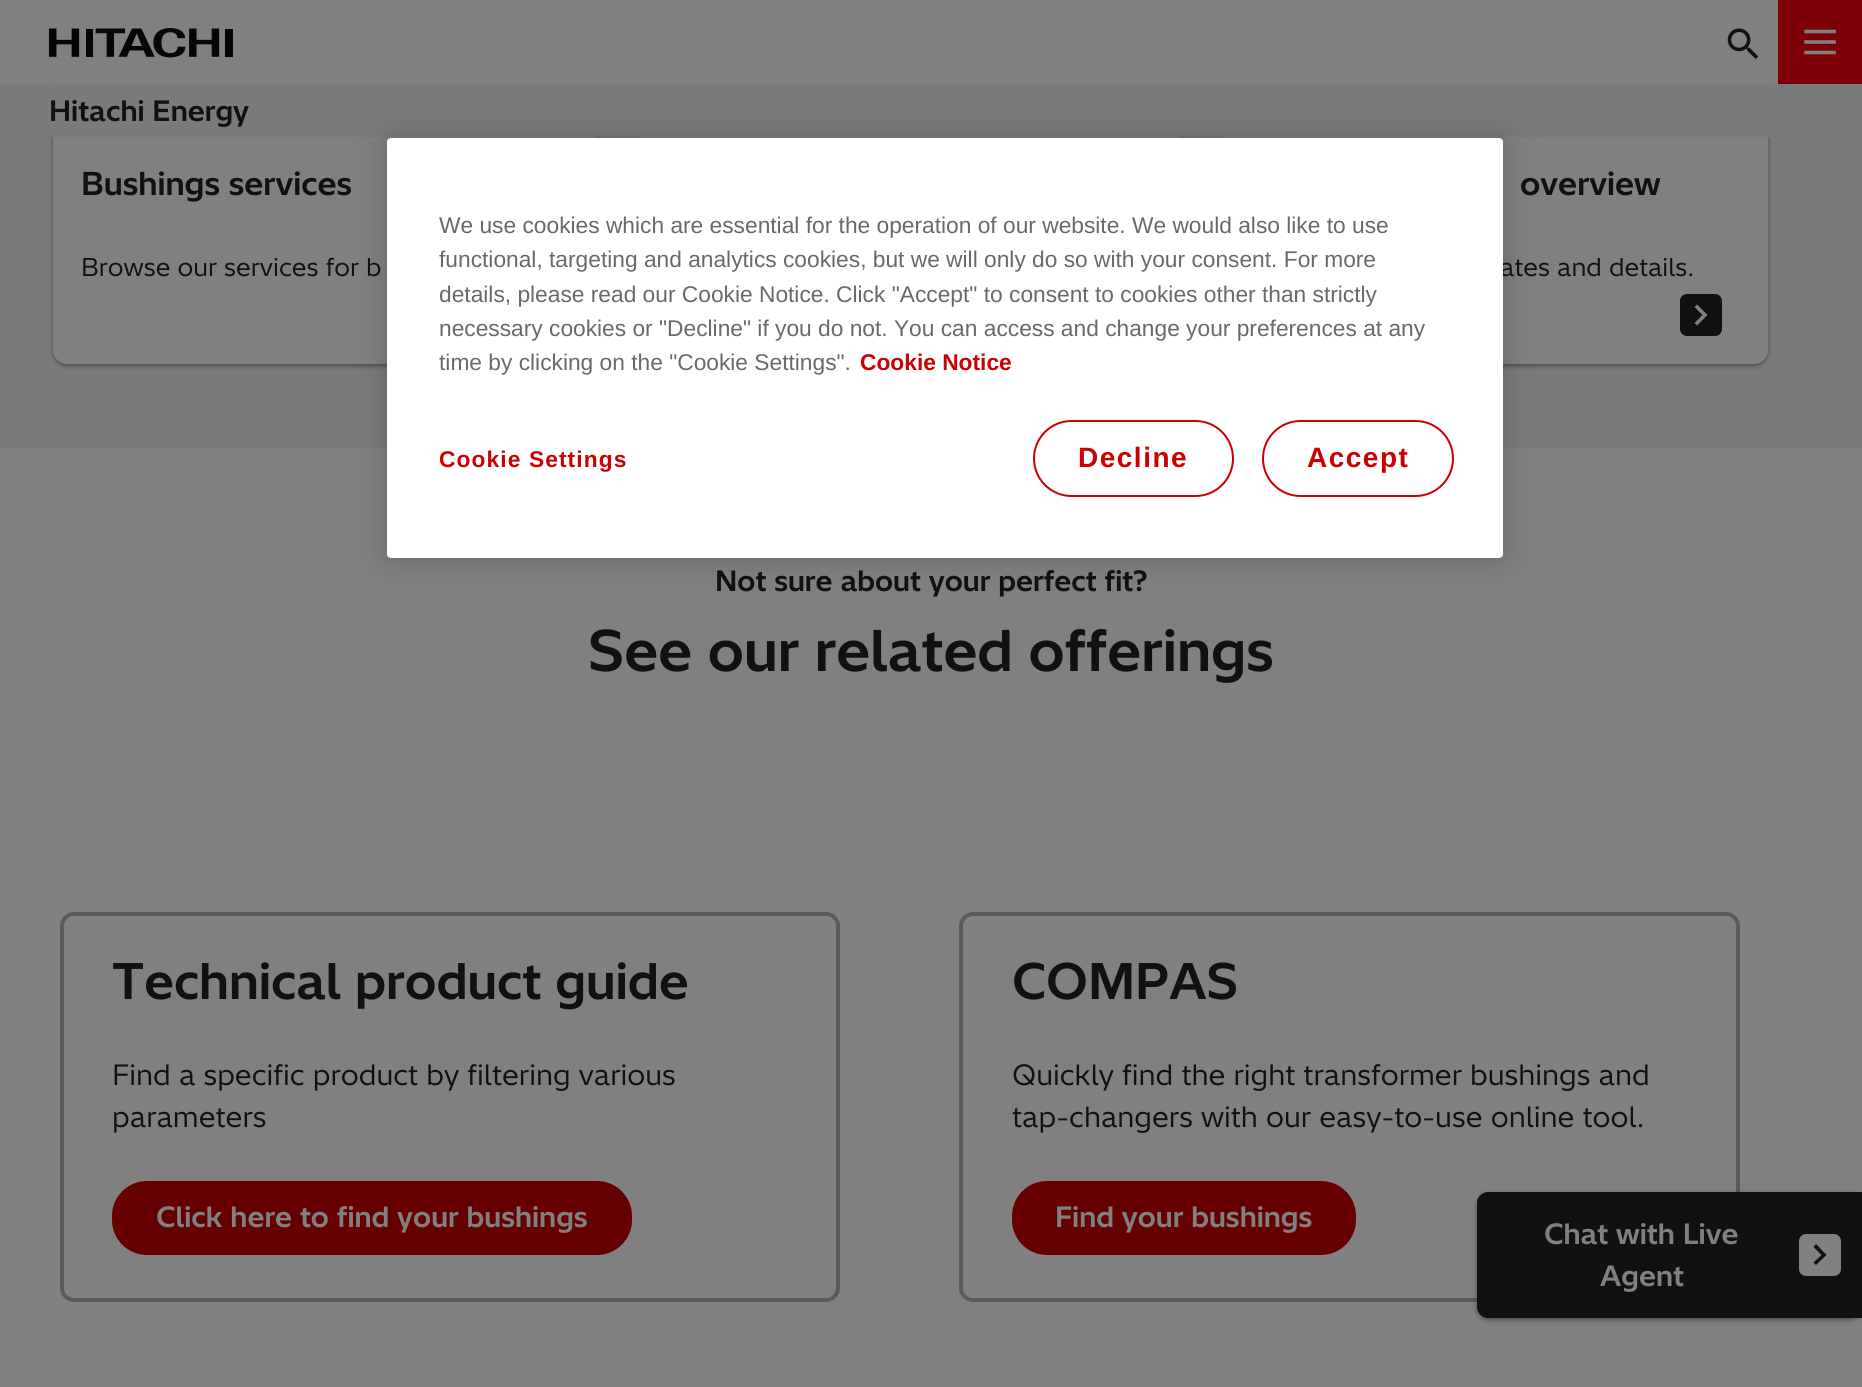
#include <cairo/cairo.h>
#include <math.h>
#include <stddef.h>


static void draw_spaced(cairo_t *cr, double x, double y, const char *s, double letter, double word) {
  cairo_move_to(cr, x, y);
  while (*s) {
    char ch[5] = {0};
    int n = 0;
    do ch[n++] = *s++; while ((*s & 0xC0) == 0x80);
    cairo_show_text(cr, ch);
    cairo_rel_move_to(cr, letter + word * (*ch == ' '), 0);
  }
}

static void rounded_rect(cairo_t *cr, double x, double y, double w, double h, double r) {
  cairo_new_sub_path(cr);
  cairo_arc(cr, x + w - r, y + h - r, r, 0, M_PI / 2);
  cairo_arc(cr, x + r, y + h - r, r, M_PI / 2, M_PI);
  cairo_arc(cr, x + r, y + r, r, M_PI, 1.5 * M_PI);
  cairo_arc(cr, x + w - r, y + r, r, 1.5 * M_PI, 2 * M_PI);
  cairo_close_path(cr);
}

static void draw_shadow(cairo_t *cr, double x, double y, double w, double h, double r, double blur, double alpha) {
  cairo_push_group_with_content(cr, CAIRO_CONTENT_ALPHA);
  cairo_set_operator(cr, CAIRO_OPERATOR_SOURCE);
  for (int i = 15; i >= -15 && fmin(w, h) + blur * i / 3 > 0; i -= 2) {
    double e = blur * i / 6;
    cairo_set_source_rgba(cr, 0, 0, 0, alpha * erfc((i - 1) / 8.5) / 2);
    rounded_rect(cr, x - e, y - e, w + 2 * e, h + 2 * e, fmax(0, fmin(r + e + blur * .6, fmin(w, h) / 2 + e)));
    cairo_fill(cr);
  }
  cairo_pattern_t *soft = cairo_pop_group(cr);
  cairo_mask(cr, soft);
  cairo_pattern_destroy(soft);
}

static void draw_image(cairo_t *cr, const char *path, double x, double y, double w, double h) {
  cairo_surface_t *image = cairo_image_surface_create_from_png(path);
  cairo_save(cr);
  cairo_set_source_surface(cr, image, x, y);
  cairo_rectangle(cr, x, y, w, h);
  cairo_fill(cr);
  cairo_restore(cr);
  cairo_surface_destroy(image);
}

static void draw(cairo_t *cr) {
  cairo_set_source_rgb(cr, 128 / 255.0, 128 / 255.0, 128 / 255.0);
  cairo_paint(cr);
  cairo_set_source_rgb(cr, 122 / 255.0, 122 / 255.0, 122 / 255.0);
  cairo_rectangle(cr, 0, 137, 1862, 311);
  cairo_fill(cr);
  cairo_set_source_rgb(cr, 0, 0, 0);
  draw_shadow(cr, 53, -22, 544, 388, 14, 2.5, 0.4);
  cairo_set_source_rgb(cr, 128 / 255.0, 128 / 255.0, 128 / 255.0);
  rounded_rect(cr, 53, -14, 544, 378, 14);
  cairo_fill(cr);
  cairo_set_source_rgb(cr, 0, 0, 0);
  draw_shadow(cr, 639, -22, 542, 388, 14, 2.5, 0.4);
  draw_shadow(cr, 1223, -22, 545, 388, 14, 2.5, 0.4);
  cairo_set_source_rgb(cr, 128 / 255.0, 128 / 255.0, 128 / 255.0);
  rounded_rect(cr, 1223, -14, 545, 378, 14);
  cairo_fill(cr);
  cairo_rectangle(cr, 49, 0, 1723, 84);
  cairo_fill(cr);
  draw_image(cr, "images/1.png", 49, 28, 184, 30);
  draw_image(cr, "images/2.png", 1727, 28, 32, 31);
  cairo_set_source_rgb(cr, 125 / 255.0, 0, 9 / 255.0);
  cairo_rectangle(cr, 1778, 0, 84, 84);
  cairo_fill(cr);
  draw_image(cr, "images/3.png", 1804, 29, 32, 26);
  cairo_set_source_rgb(cr, 122 / 255.0, 122 / 255.0, 122 / 255.0);
  cairo_rectangle(cr, 0, 84, 1862, 53);
  cairo_fill(cr);
  cairo_set_source_rgb(cr, 128 / 255.0, 128 / 255.0, 128 / 255.0);
  cairo_rectangle(cr, 639, 137, 542, 1);
  cairo_fill(cr);
  cairo_set_source_rgb(cr, 17 / 255.0, 17 / 255.0, 17 / 255.0);
  rounded_rect(cr, 1680, 294, 42, 42, 7);
  cairo_fill(cr);
  cairo_set_source_rgb(cr, 128 / 255.0, 128 / 255.0, 128 / 255.0);
  cairo_new_path(cr);
  cairo_move_to(cr, 1694.5, 323);
  cairo_line_to(cr, 1702.5, 315);
  cairo_line_to(cr, 1694.5, 307);
  cairo_line_to(cr, 1697, 304.5);
  cairo_line_to(cr, 1707.5, 315);
  cairo_line_to(cr, 1697, 325.5);
  cairo_close_path(cr);
  cairo_fill(cr);
  rounded_rect(cr, 62, 914, 776, 386, 12);
  cairo_set_source_rgb(cr, 90 / 255.0, 90 / 255.0, 90 / 255.0);
  cairo_set_line_width(cr, 4);
  cairo_stroke(cr);
  cairo_set_source_rgb(cr, 102 / 255.0, 0, 0);
  rounded_rect(cr, 113, 1182, 518, 72, 34);
  cairo_fill_preserve(cr);
  cairo_set_line_width(cr, 2);
  cairo_stroke(cr);
  rounded_rect(cr, 961, 914, 777, 386, 12);
  cairo_set_source_rgb(cr, 90 / 255.0, 90 / 255.0, 90 / 255.0);
  cairo_set_line_width(cr, 4);
  cairo_stroke(cr);
  cairo_set_source_rgb(cr, 102 / 255.0, 0, 0);
  rounded_rect(cr, 1013, 1182, 342, 72, 34);
  cairo_fill_preserve(cr);
  cairo_set_line_width(cr, 2);
  cairo_stroke(cr);
  cairo_set_source_rgb(cr, 0, 0, 0);
  draw_shadow(cr, 1477, 1194, 385, 126, 11, 2.5, 0.4);
  cairo_set_source_rgb(cr, 17 / 255.0, 17 / 255.0, 17 / 255.0);
  cairo_new_path(cr);
  cairo_move_to(cr, 1488, 1192);
  cairo_line_to(cr, 1862, 1192);
  cairo_line_to(cr, 1862, 1318);
  cairo_line_to(cr, 1488, 1318);
  cairo_curve_to(cr, 1482, 1318, 1477, 1313, 1477, 1307);
  cairo_line_to(cr, 1477, 1203);
  cairo_curve_to(cr, 1477, 1197, 1482, 1192, 1488, 1192);
  cairo_close_path(cr);
  cairo_fill(cr);
  cairo_set_source_rgb(cr, 128 / 255.0, 128 / 255.0, 128 / 255.0);
  rounded_rect(cr, 1799, 1234, 42, 42, 7);
  cairo_fill(cr);
  cairo_set_source_rgb(cr, 17 / 255.0, 17 / 255.0, 17 / 255.0);
  cairo_new_path(cr);
  cairo_move_to(cr, 1813.5, 1262.5);
  cairo_line_to(cr, 1821.5, 1255);
  cairo_line_to(cr, 1813.5, 1247);
  cairo_line_to(cr, 1816, 1244);
  cairo_line_to(cr, 1826.5, 1255);
  cairo_line_to(cr, 1816, 1265);
  cairo_close_path(cr);
  cairo_fill(cr);
  cairo_set_source_rgb(cr, 0, 0, 0);
  draw_shadow(cr, 387, 138, 1116, 420, 4, 16, 0.2);
  cairo_select_font_face(cr, "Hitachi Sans", CAIRO_FONT_SLANT_NORMAL, CAIRO_FONT_WEIGHT_BOLD);
  cairo_set_font_size(cr, 28);
  cairo_set_source_rgb(cr, 17 / 255.0, 17 / 255.0, 17 / 255.0);
  cairo_move_to(cr, 49, 121);
  cairo_show_text(cr, "Hitachi Energy");
  cairo_set_font_size(cr, 31.5);
  cairo_move_to(cr, 81, 195);
  cairo_show_text(cr, "Bushings services");
  cairo_select_font_face(cr, "Hitachi Sans", CAIRO_FONT_SLANT_NORMAL, CAIRO_FONT_WEIGHT_NORMAL);
  cairo_set_font_size(cr, 24.5);
  cairo_move_to(cr, 81, 276);
  cairo_show_text(cr, "Browse our services for b");
  cairo_select_font_face(cr, "Hitachi Sans", CAIRO_FONT_SLANT_NORMAL, CAIRO_FONT_WEIGHT_BOLD);
  cairo_set_font_size(cr, 31.5);
  cairo_move_to(cr, 1520, 195);
  cairo_show_text(cr, "overview");
  cairo_select_font_face(cr, "Hitachi Sans", CAIRO_FONT_SLANT_NORMAL, CAIRO_FONT_WEIGHT_NORMAL);
  cairo_set_font_size(cr, 24.5);
  cairo_move_to(cr, 1500, 276);
  cairo_show_text(cr, "ates and details.");
  cairo_select_font_face(cr, "Hitachi Sans", CAIRO_FONT_SLANT_NORMAL, CAIRO_FONT_WEIGHT_BOLD);
  cairo_set_font_size(cr, 28);
  cairo_move_to(cr, 715, 591);
  cairo_show_text(cr, "Not sure about your perfect fit?");
  cairo_set_font_size(cr, 56);
  cairo_move_to(cr, 588, 671);
  cairo_show_text(cr, "See our related offerings");
  cairo_set_font_size(cr, 49);
  cairo_move_to(cr, 112, 999);
  cairo_show_text(cr, "Technical product guide");
  cairo_select_font_face(cr, "Hitachi Sans", CAIRO_FONT_SLANT_NORMAL, CAIRO_FONT_WEIGHT_NORMAL);
  cairo_set_font_size(cr, 28);
  cairo_move_to(cr, 112, 1085);
  cairo_show_text(cr, "Find a specific product by filtering various");
  cairo_move_to(cr, 112, 1127);
  cairo_show_text(cr, "parameters");
  cairo_select_font_face(cr, "Hitachi Sans", CAIRO_FONT_SLANT_NORMAL, CAIRO_FONT_WEIGHT_BOLD);
  cairo_set_source_rgb(cr, 128 / 255.0, 128 / 255.0, 128 / 255.0);
  cairo_move_to(cr, 156, 1227);
  cairo_show_text(cr, "Click here to find your bushings");
  cairo_set_font_size(cr, 49);
  cairo_set_source_rgb(cr, 17 / 255.0, 17 / 255.0, 17 / 255.0);
  cairo_move_to(cr, 1012, 999);
  cairo_show_text(cr, "COMPAS");
  cairo_select_font_face(cr, "Hitachi Sans", CAIRO_FONT_SLANT_NORMAL, CAIRO_FONT_WEIGHT_NORMAL);
  cairo_set_font_size(cr, 28);
  cairo_move_to(cr, 1012, 1085);
  cairo_show_text(cr, "Quickly find the right transformer bushings and");
  cairo_move_to(cr, 1012, 1127);
  cairo_show_text(cr, "tap-changers with our easy-to-use online tool.");
  cairo_select_font_face(cr, "Hitachi Sans", CAIRO_FONT_SLANT_NORMAL, CAIRO_FONT_WEIGHT_BOLD);
  cairo_set_source_rgb(cr, 128 / 255.0, 128 / 255.0, 128 / 255.0);
  cairo_move_to(cr, 1055, 1227);
  cairo_show_text(cr, "Find your bushings");
  cairo_move_to(cr, 1544, 1244);
  cairo_show_text(cr, "Chat with Live");
  cairo_move_to(cr, 1600, 1286);
  cairo_show_text(cr, "Agent");
  cairo_set_source_rgb(cr, 1, 1, 1);
  rounded_rect(cr, 387, 138, 1116, 420, 4);
  cairo_fill(cr);
  cairo_select_font_face(cr, "Liberation Sans", CAIRO_FONT_SLANT_NORMAL, CAIRO_FONT_WEIGHT_NORMAL);
  cairo_set_font_size(cr, 22.75);
  cairo_set_source_rgb(cr, 105 / 255.0, 105 / 255.0, 105 / 255.0);
  cairo_move_to(cr, 439, 233);
  cairo_show_text(cr, "We use cookies which are essential for the operation of our website. We would also like to use");
  cairo_move_to(cr, 439, 267);
  cairo_show_text(cr, "functional, targeting and analytics cookies, but we will only do so with your consent. For more");
  cairo_move_to(cr, 439, 302);
  cairo_show_text(cr, "details, please read our Cookie Notice. Click \"Accept\" to consent to cookies other than strictly");
  cairo_move_to(cr, 439, 336);
  cairo_show_text(cr, "necessary cookies or \"Decline\" if you do not. You can access and change your preferences at any");
  cairo_move_to(cr, 439, 370);
  cairo_show_text(cr, "time by clicking on the \"Cookie Settings\".");
  cairo_select_font_face(cr, "Liberation Sans", CAIRO_FONT_SLANT_NORMAL, CAIRO_FONT_WEIGHT_BOLD);
  cairo_set_source_rgb(cr, 204 / 255.0, 0, 0);
  cairo_move_to(cr, 860, 370);
  cairo_show_text(cr, "Cookie Notice");
  draw_spaced(cr, 439, 467, "Cookie Settings", 1.1, 0);
  rounded_rect(cr, 1034, 421, 199, 75, 37.5);
  cairo_stroke(cr);
  cairo_set_font_size(cr, 28);
  draw_spaced(cr, 1078, 467, "Decline", 1.5, 0);
  rounded_rect(cr, 1263, 421, 190, 75, 37.5);
  cairo_stroke(cr);
  draw_spaced(cr, 1307, 467, "Accept", 1.5, 0);
}

int main(void) {
  cairo_surface_t *surface = cairo_image_surface_create(CAIRO_FORMAT_RGB24, 1862, 1387);
  cairo_t *cr = cairo_create(surface);
  cairo_font_options_t *options = cairo_font_options_create();
  cairo_font_options_set_hint_metrics(options, CAIRO_HINT_METRICS_OFF);
  cairo_font_options_set_hint_style(options, CAIRO_HINT_STYLE_NONE);
  cairo_set_font_options(cr, options);
  cairo_set_miter_limit(cr, 4);
  draw(cr);
  cairo_surface_write_to_png(surface, "out.png");
  cairo_font_options_destroy(options);
  cairo_destroy(cr);
  cairo_surface_destroy(surface);
  return 0;
}
